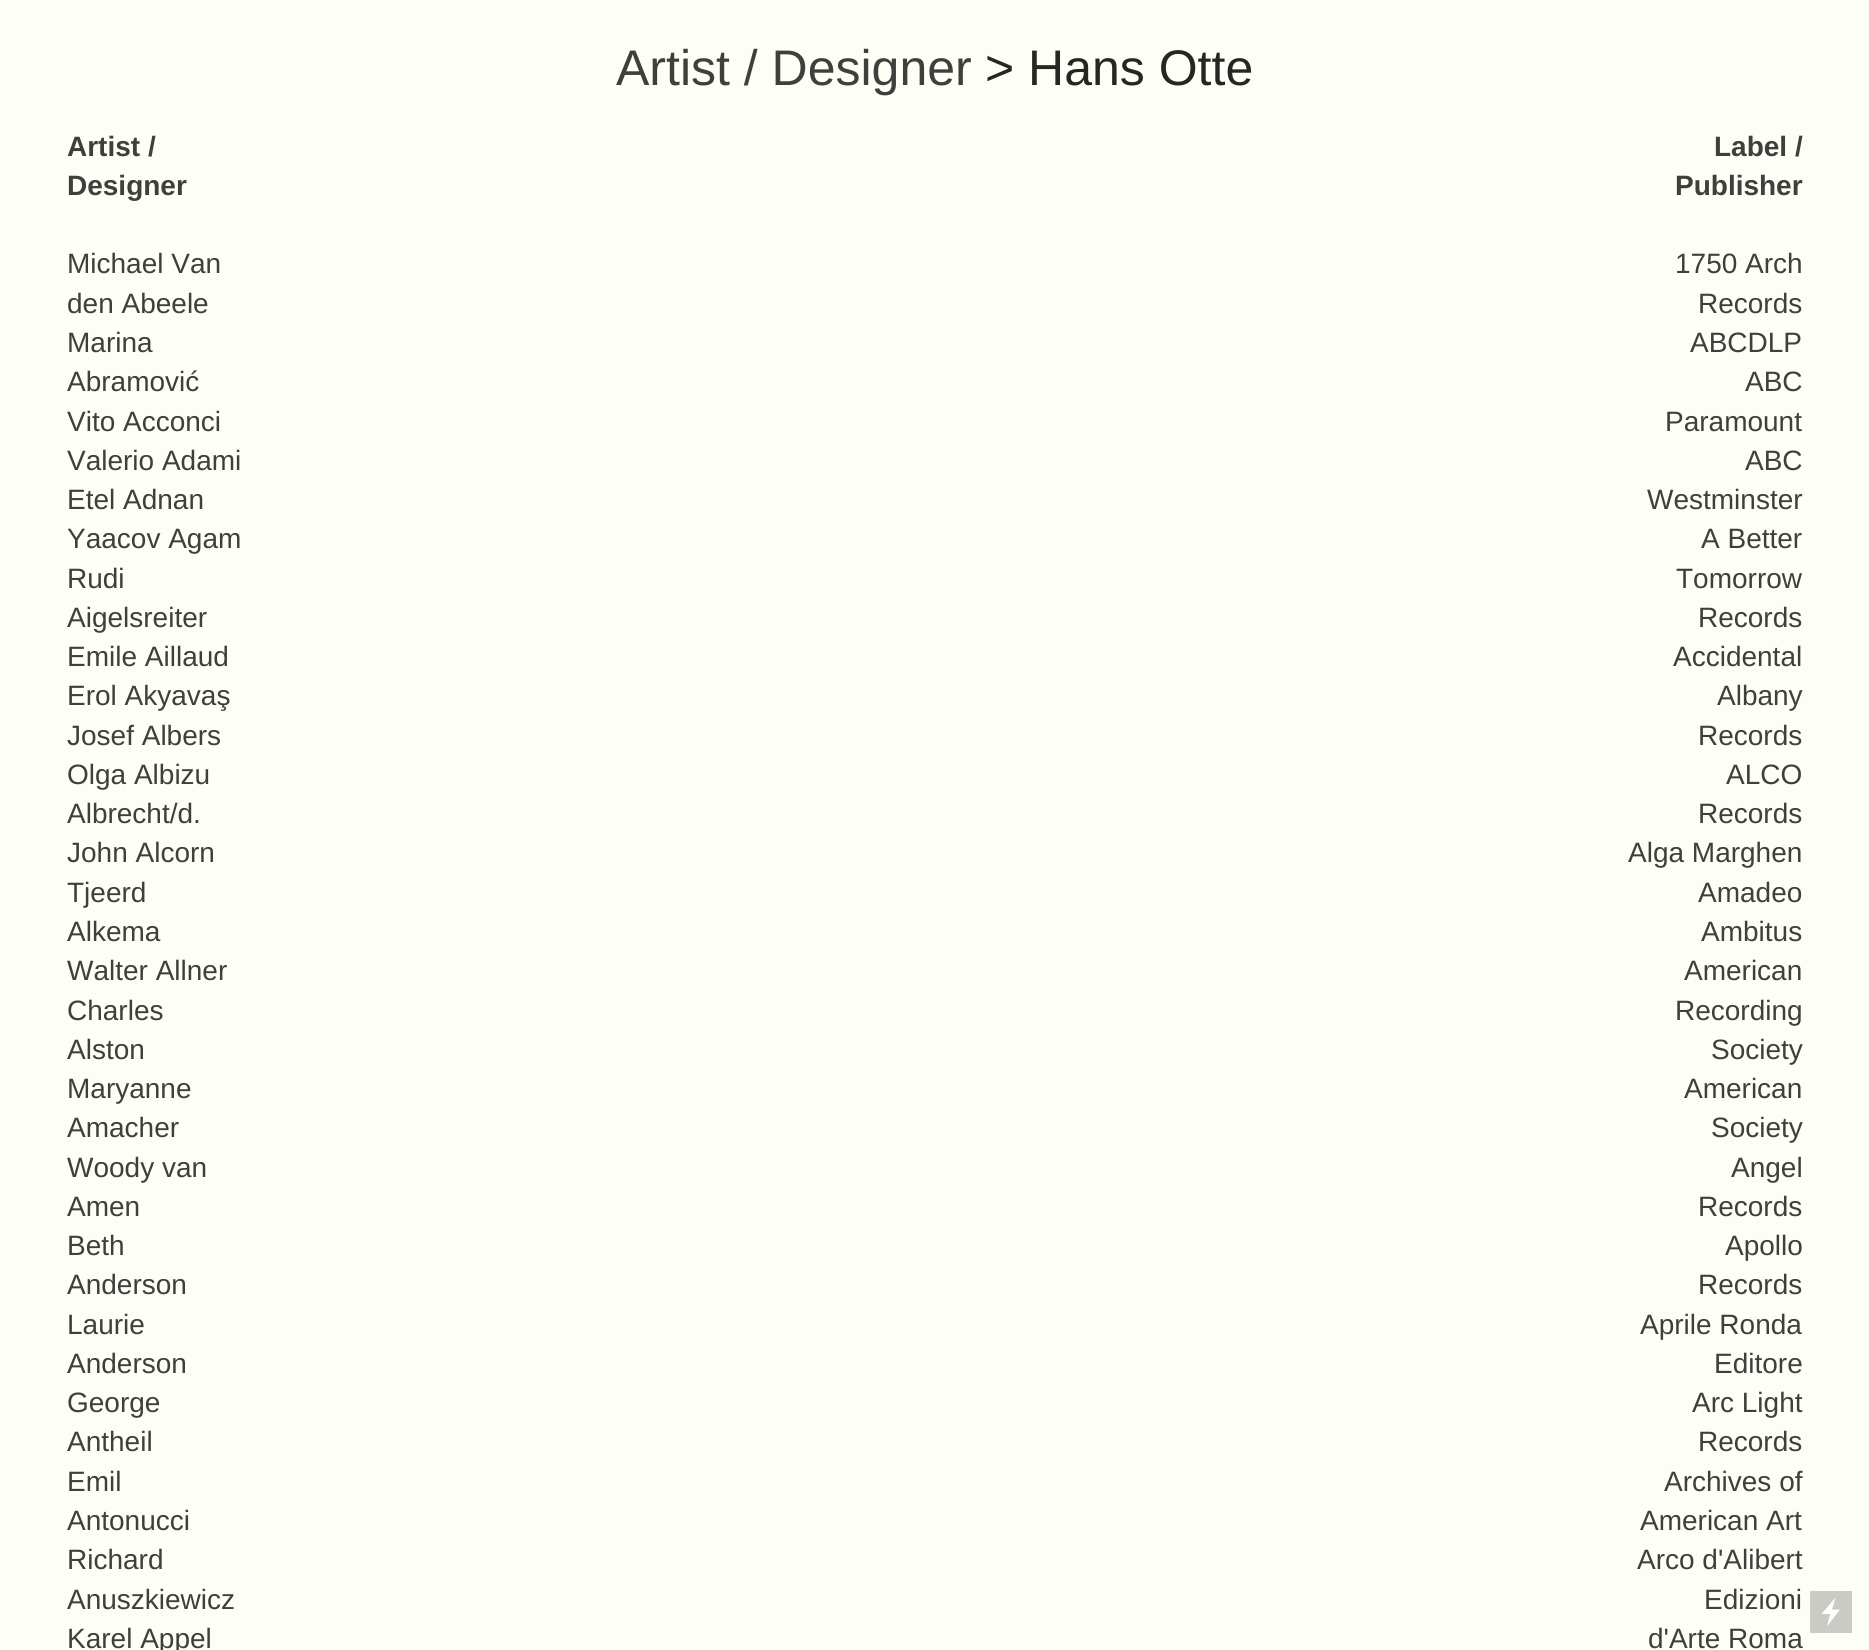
#include <cairo/cairo.h>
#include <math.h>
#include <stddef.h>


static void draw(cairo_t *cr) {
  cairo_set_source_rgb(cr, 253 / 255.0, 254 / 255.0, 245 / 255.0);
  cairo_paint(cr);
  cairo_set_source_rgb(cr, 202 / 255.0, 203 / 255.0, 196 / 255.0);
  cairo_rectangle(cr, 1810, 1591, 42, 42);
  cairo_fill(cr);
  cairo_set_source_rgb(cr, 1, 1, 1);
  cairo_new_path(cr);
  cairo_move_to(cr, 1840, 1609.5);
  cairo_line_to(cr, 1832, 1609.5);
  cairo_line_to(cr, 1835.5, 1597.5);
  cairo_line_to(cr, 1821.5, 1614);
  cairo_line_to(cr, 1830, 1614);
  cairo_line_to(cr, 1827, 1626.5);
  cairo_close_path(cr);
  cairo_fill(cr);
  cairo_select_font_face(cr, "Liberation Sans", CAIRO_FONT_SLANT_NORMAL, CAIRO_FONT_WEIGHT_NORMAL);
  cairo_set_font_size(cr, 50);
  cairo_set_source_rgb(cr, 63 / 255.0, 64 / 255.0, 61 / 255.0);
  cairo_move_to(cr, 616, 85);
  cairo_show_text(cr, "Artist / Designer");
  cairo_set_source_rgb(cr, 38 / 255.0, 38 / 255.0, 37 / 255.0);
  cairo_move_to(cr, 985, 85);
  cairo_show_text(cr, "> Hans Otte");
  cairo_select_font_face(cr, "Liberation Sans", CAIRO_FONT_SLANT_NORMAL, CAIRO_FONT_WEIGHT_BOLD);
  cairo_set_font_size(cr, 28);
  cairo_set_source_rgb(cr, 63 / 255.0, 64 / 255.0, 61 / 255.0);
  cairo_move_to(cr, 67, 156);
  cairo_show_text(cr, "Artist /");
  cairo_move_to(cr, 67, 195);
  cairo_show_text(cr, "Designer");
  cairo_select_font_face(cr, "Liberation Sans", CAIRO_FONT_SLANT_NORMAL, CAIRO_FONT_WEIGHT_NORMAL);
  cairo_move_to(cr, 67, 273);
  cairo_show_text(cr, "Michael Van");
  cairo_move_to(cr, 67, 313);
  cairo_show_text(cr, "den Abeele");
  cairo_move_to(cr, 67, 352);
  cairo_show_text(cr, "Marina");
  cairo_move_to(cr, 67, 391);
  cairo_show_text(cr, "Abramović");
  cairo_move_to(cr, 67, 431);
  cairo_show_text(cr, "Vito Acconci");
  cairo_move_to(cr, 67, 470);
  cairo_show_text(cr, "Valerio Adami");
  cairo_move_to(cr, 67, 509);
  cairo_show_text(cr, "Etel Adnan");
  cairo_move_to(cr, 67, 548);
  cairo_show_text(cr, "Yaacov Agam");
  cairo_move_to(cr, 67, 588);
  cairo_show_text(cr, "Rudi");
  cairo_move_to(cr, 67, 627);
  cairo_show_text(cr, "Aigelsreiter");
  cairo_move_to(cr, 67, 666);
  cairo_show_text(cr, "Emile Aillaud");
  cairo_move_to(cr, 67, 705);
  cairo_show_text(cr, "Erol Akyavaş");
  cairo_move_to(cr, 67, 745);
  cairo_show_text(cr, "Josef Albers");
  cairo_move_to(cr, 67, 784);
  cairo_show_text(cr, "Olga Albizu");
  cairo_move_to(cr, 67, 823);
  cairo_show_text(cr, "Albrecht/d.");
  cairo_move_to(cr, 67, 862);
  cairo_show_text(cr, "John Alcorn");
  cairo_move_to(cr, 67, 902);
  cairo_show_text(cr, "Tjeerd");
  cairo_move_to(cr, 67, 941);
  cairo_show_text(cr, "Alkema");
  cairo_move_to(cr, 67, 980);
  cairo_show_text(cr, "Walter Allner");
  cairo_move_to(cr, 67, 1020);
  cairo_show_text(cr, "Charles");
  cairo_move_to(cr, 67, 1059);
  cairo_show_text(cr, "Alston");
  cairo_move_to(cr, 67, 1098);
  cairo_show_text(cr, "Maryanne");
  cairo_move_to(cr, 67, 1137);
  cairo_show_text(cr, "Amacher");
  cairo_move_to(cr, 67, 1177);
  cairo_show_text(cr, "Woody van");
  cairo_move_to(cr, 67, 1216);
  cairo_show_text(cr, "Amen");
  cairo_move_to(cr, 67, 1255);
  cairo_show_text(cr, "Beth");
  cairo_move_to(cr, 67, 1294);
  cairo_show_text(cr, "Anderson");
  cairo_move_to(cr, 67, 1334);
  cairo_show_text(cr, "Laurie");
  cairo_move_to(cr, 67, 1373);
  cairo_show_text(cr, "Anderson");
  cairo_move_to(cr, 67, 1412);
  cairo_show_text(cr, "George");
  cairo_move_to(cr, 67, 1451);
  cairo_show_text(cr, "Antheil");
  cairo_move_to(cr, 67, 1491);
  cairo_show_text(cr, "Emil");
  cairo_move_to(cr, 67, 1530);
  cairo_show_text(cr, "Antonucci");
  cairo_move_to(cr, 67, 1569);
  cairo_show_text(cr, "Richard");
  cairo_move_to(cr, 67, 1609);
  cairo_show_text(cr, "Anuszkiewicz");
  cairo_move_to(cr, 67, 1648);
  cairo_show_text(cr, "Karel Appel");
  cairo_select_font_face(cr, "Liberation Sans", CAIRO_FONT_SLANT_NORMAL, CAIRO_FONT_WEIGHT_BOLD);
  cairo_move_to(cr, 1714, 156);
  cairo_show_text(cr, "Label /");
  cairo_move_to(cr, 1675, 195);
  cairo_show_text(cr, "Publisher");
  cairo_select_font_face(cr, "Liberation Sans", CAIRO_FONT_SLANT_NORMAL, CAIRO_FONT_WEIGHT_NORMAL);
  cairo_move_to(cr, 1675, 273);
  cairo_show_text(cr, "1750 Arch");
  cairo_move_to(cr, 1698, 313);
  cairo_show_text(cr, "Records");
  cairo_move_to(cr, 1690, 352);
  cairo_show_text(cr, "ABCDLP");
  cairo_move_to(cr, 1745, 391);
  cairo_show_text(cr, "ABC");
  cairo_move_to(cr, 1665, 431);
  cairo_show_text(cr, "Paramount");
  cairo_move_to(cr, 1745, 470);
  cairo_show_text(cr, "ABC");
  cairo_move_to(cr, 1647, 509);
  cairo_show_text(cr, "Westminster");
  cairo_move_to(cr, 1701, 548);
  cairo_show_text(cr, "A Better");
  cairo_move_to(cr, 1676, 588);
  cairo_show_text(cr, "Tomorrow");
  cairo_move_to(cr, 1698, 627);
  cairo_show_text(cr, "Records");
  cairo_move_to(cr, 1673, 666);
  cairo_show_text(cr, "Accidental");
  cairo_move_to(cr, 1717, 705);
  cairo_show_text(cr, "Albany");
  cairo_move_to(cr, 1698, 745);
  cairo_show_text(cr, "Records");
  cairo_move_to(cr, 1726, 784);
  cairo_show_text(cr, "ALCO");
  cairo_move_to(cr, 1698, 823);
  cairo_show_text(cr, "Records");
  cairo_move_to(cr, 1628, 862);
  cairo_show_text(cr, "Alga Marghen");
  cairo_move_to(cr, 1698, 902);
  cairo_show_text(cr, "Amadeo");
  cairo_move_to(cr, 1701, 941);
  cairo_show_text(cr, "Ambitus");
  cairo_move_to(cr, 1684, 980);
  cairo_show_text(cr, "American");
  cairo_move_to(cr, 1675, 1020);
  cairo_show_text(cr, "Recording");
  cairo_move_to(cr, 1711, 1059);
  cairo_show_text(cr, "Society");
  cairo_move_to(cr, 1684, 1098);
  cairo_show_text(cr, "American");
  cairo_move_to(cr, 1711, 1137);
  cairo_show_text(cr, "Society");
  cairo_move_to(cr, 1731, 1177);
  cairo_show_text(cr, "Angel");
  cairo_move_to(cr, 1698, 1216);
  cairo_show_text(cr, "Records");
  cairo_move_to(cr, 1725, 1255);
  cairo_show_text(cr, "Apollo");
  cairo_move_to(cr, 1698, 1294);
  cairo_show_text(cr, "Records");
  cairo_move_to(cr, 1640, 1334);
  cairo_show_text(cr, "Aprile Ronda");
  cairo_move_to(cr, 1714, 1373);
  cairo_show_text(cr, "Editore");
  cairo_move_to(cr, 1692, 1412);
  cairo_show_text(cr, "Arc Light");
  cairo_move_to(cr, 1698, 1451);
  cairo_show_text(cr, "Records");
  cairo_move_to(cr, 1664, 1491);
  cairo_show_text(cr, "Archives of");
  cairo_move_to(cr, 1640, 1530);
  cairo_show_text(cr, "American Art");
  cairo_move_to(cr, 1637, 1569);
  cairo_show_text(cr, "Arco d'Alibert");
  cairo_move_to(cr, 1704, 1609);
  cairo_show_text(cr, "Edizioni");
  cairo_move_to(cr, 1648, 1648);
  cairo_show_text(cr, "d'Arte Roma");
}

int main(void) {
  cairo_surface_t *surface = cairo_image_surface_create(CAIRO_FORMAT_RGB24, 1869, 1650);
  cairo_t *cr = cairo_create(surface);
  cairo_font_options_t *options = cairo_font_options_create();
  cairo_font_options_set_hint_metrics(options, CAIRO_HINT_METRICS_OFF);
  cairo_font_options_set_hint_style(options, CAIRO_HINT_STYLE_NONE);
  cairo_set_font_options(cr, options);
  cairo_set_miter_limit(cr, 4);
  draw(cr);
  cairo_surface_write_to_png(surface, "out.png");
  cairo_font_options_destroy(options);
  cairo_destroy(cr);
  cairo_surface_destroy(surface);
  return 0;
}
